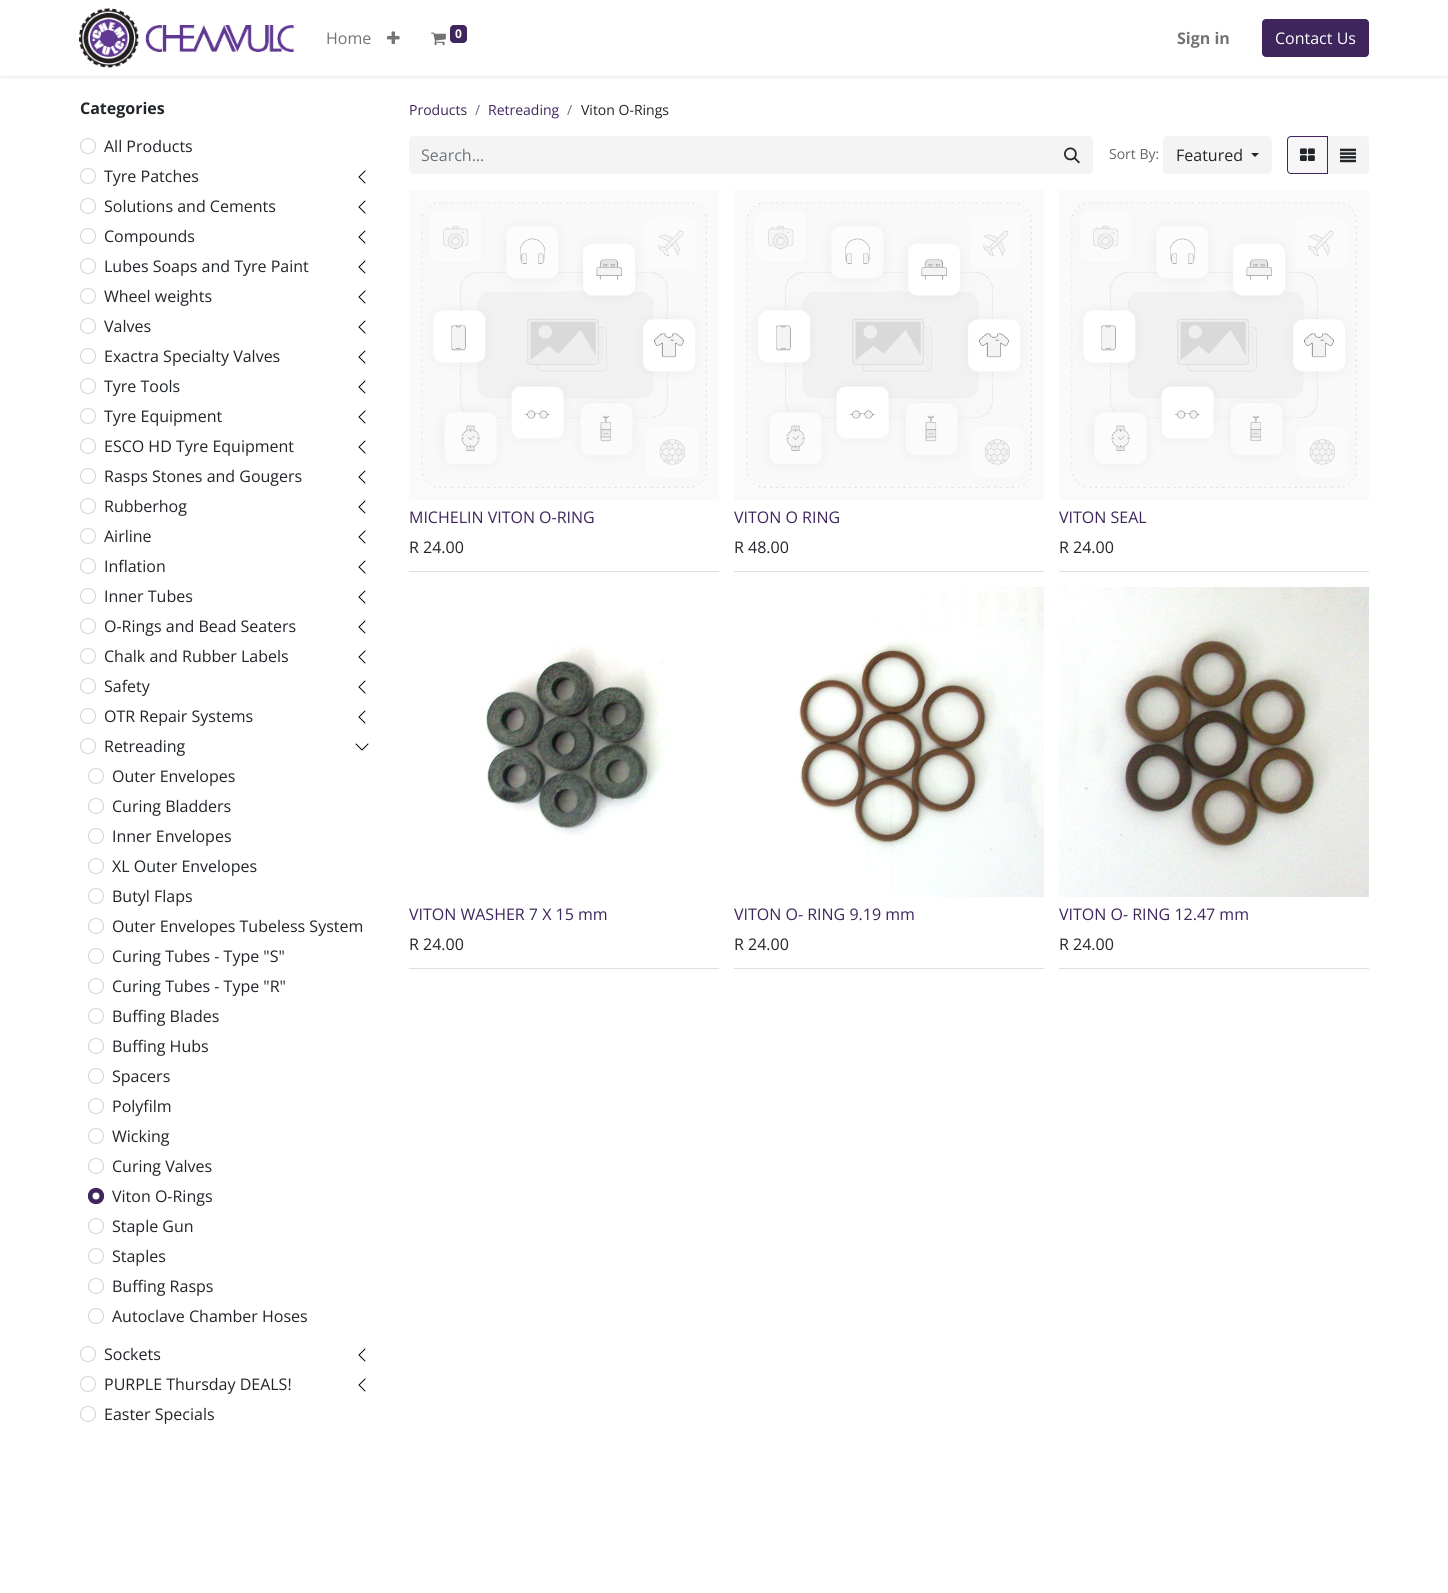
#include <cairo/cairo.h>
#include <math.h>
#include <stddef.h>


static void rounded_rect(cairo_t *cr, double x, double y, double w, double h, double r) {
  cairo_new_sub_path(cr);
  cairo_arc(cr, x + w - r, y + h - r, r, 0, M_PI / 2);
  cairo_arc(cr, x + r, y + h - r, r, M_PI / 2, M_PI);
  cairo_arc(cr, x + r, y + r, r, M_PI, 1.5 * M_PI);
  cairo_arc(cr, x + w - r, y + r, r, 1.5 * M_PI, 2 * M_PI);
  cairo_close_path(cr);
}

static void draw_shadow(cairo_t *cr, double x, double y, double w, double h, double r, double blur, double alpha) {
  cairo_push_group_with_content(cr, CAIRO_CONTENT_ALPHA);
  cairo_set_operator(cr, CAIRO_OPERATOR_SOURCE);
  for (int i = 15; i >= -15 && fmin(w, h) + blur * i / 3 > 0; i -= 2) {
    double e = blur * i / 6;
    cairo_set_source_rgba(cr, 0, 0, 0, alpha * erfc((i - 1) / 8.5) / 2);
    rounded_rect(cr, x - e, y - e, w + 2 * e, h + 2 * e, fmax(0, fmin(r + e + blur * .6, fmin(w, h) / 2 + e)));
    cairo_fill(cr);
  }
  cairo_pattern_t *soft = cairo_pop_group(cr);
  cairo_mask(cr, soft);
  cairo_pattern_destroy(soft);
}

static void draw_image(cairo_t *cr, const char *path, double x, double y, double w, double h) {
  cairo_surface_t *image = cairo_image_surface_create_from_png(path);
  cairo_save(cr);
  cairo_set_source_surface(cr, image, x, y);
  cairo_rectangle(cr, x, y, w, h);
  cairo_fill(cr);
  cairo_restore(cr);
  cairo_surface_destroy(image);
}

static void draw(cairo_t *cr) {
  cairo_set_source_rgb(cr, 1, 1, 1);
  cairo_paint(cr);
  cairo_save(cr);
  cairo_rectangle(cr, 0, 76, 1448, 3);
  cairo_clip(cr);
  cairo_set_source_rgb(cr, 0, 0, 0);
  draw_shadow(cr, 0, 2, 1448, 76, 0, 2, 0.07);
  cairo_restore(cr);
  draw_image(cr, "images/1.png", 79, 8, 215, 60);
  draw_image(cr, "images/2.png", 387, 31, 13, 13);
  draw_image(cr, "images/3.png", 431, 32, 15, 14);
  cairo_set_source_rgb(cr, 62 / 255.0, 38 / 255.0, 93 / 255.0);
  rounded_rect(cr, 450, 25, 17, 18, 4);
  cairo_fill(cr);
  rounded_rect(cr, 1262.5, 19.5, 106, 37, 3.5);
  cairo_fill_preserve(cr);
  cairo_set_line_width(cr, 1);
  cairo_stroke(cr);
  cairo_arc(cr, 88, 146, 7.5, 0, 2 * M_PI);
  cairo_set_source_rgb(cr, 206 / 255.0, 212 / 255.0, 218 / 255.0);
  cairo_stroke(cr);
  cairo_arc(cr, 88, 176, 7.5, 0, 2 * M_PI);
  cairo_stroke(cr);
  draw_image(cr, "images/4.png", 358, 170, 8, 14);
  cairo_arc(cr, 88, 206, 7.5, 0, 2 * M_PI);
  cairo_stroke(cr);
  draw_image(cr, "images/4.png", 358, 200, 8, 14);
  cairo_arc(cr, 88, 236, 7.5, 0, 2 * M_PI);
  cairo_stroke(cr);
  draw_image(cr, "images/4.png", 358, 230, 8, 14);
  cairo_arc(cr, 88, 266, 7.5, 0, 2 * M_PI);
  cairo_stroke(cr);
  draw_image(cr, "images/4.png", 358, 260, 8, 14);
  cairo_arc(cr, 88, 296, 7.5, 0, 2 * M_PI);
  cairo_stroke(cr);
  draw_image(cr, "images/4.png", 358, 290, 8, 14);
  cairo_arc(cr, 88, 326, 7.5, 0, 2 * M_PI);
  cairo_stroke(cr);
  draw_image(cr, "images/4.png", 358, 320, 8, 14);
  cairo_arc(cr, 88, 356, 7.5, 0, 2 * M_PI);
  cairo_stroke(cr);
  draw_image(cr, "images/4.png", 358, 350, 8, 14);
  cairo_arc(cr, 88, 386, 7.5, 0, 2 * M_PI);
  cairo_stroke(cr);
  draw_image(cr, "images/4.png", 358, 380, 8, 14);
  cairo_arc(cr, 88, 416, 7.5, 0, 2 * M_PI);
  cairo_stroke(cr);
  draw_image(cr, "images/4.png", 358, 410, 8, 14);
  cairo_arc(cr, 88, 446, 7.5, 0, 2 * M_PI);
  cairo_stroke(cr);
  draw_image(cr, "images/4.png", 358, 440, 8, 14);
  cairo_arc(cr, 88, 476, 7.5, 0, 2 * M_PI);
  cairo_stroke(cr);
  draw_image(cr, "images/4.png", 358, 470, 8, 14);
  cairo_arc(cr, 88, 506, 7.5, 0, 2 * M_PI);
  cairo_stroke(cr);
  draw_image(cr, "images/4.png", 358, 500, 8, 14);
  cairo_arc(cr, 88, 536, 7.5, 0, 2 * M_PI);
  cairo_stroke(cr);
  draw_image(cr, "images/4.png", 358, 530, 8, 14);
  cairo_arc(cr, 88, 566, 7.5, 0, 2 * M_PI);
  cairo_stroke(cr);
  draw_image(cr, "images/4.png", 358, 560, 8, 14);
  cairo_arc(cr, 88, 596, 7.5, 0, 2 * M_PI);
  cairo_stroke(cr);
  draw_image(cr, "images/4.png", 358, 590, 8, 14);
  cairo_arc(cr, 88, 626, 7.5, 0, 2 * M_PI);
  cairo_stroke(cr);
  draw_image(cr, "images/4.png", 358, 620, 8, 14);
  cairo_arc(cr, 88, 656, 7.5, 0, 2 * M_PI);
  cairo_stroke(cr);
  draw_image(cr, "images/4.png", 358, 650, 8, 14);
  cairo_arc(cr, 88, 686, 7.5, 0, 2 * M_PI);
  cairo_stroke(cr);
  draw_image(cr, "images/4.png", 358, 680, 8, 14);
  cairo_arc(cr, 88, 716, 7.5, 0, 2 * M_PI);
  cairo_stroke(cr);
  draw_image(cr, "images/4.png", 358, 710, 8, 14);
  cairo_arc(cr, 88, 746, 7.5, 0, 2 * M_PI);
  cairo_stroke(cr);
  draw_image(cr, "images/5.png", 355, 743, 14, 8);
  cairo_arc(cr, 96, 776, 7.5, 0, 2 * M_PI);
  cairo_stroke(cr);
  cairo_arc(cr, 96, 806, 7.5, 0, 2 * M_PI);
  cairo_stroke(cr);
  cairo_arc(cr, 96, 836, 7.5, 0, 2 * M_PI);
  cairo_stroke(cr);
  cairo_arc(cr, 96, 866, 7.5, 0, 2 * M_PI);
  cairo_stroke(cr);
  cairo_arc(cr, 96, 896, 7.5, 0, 2 * M_PI);
  cairo_stroke(cr);
  cairo_arc(cr, 96, 926, 7.5, 0, 2 * M_PI);
  cairo_stroke(cr);
  cairo_arc(cr, 96, 956, 7.5, 0, 2 * M_PI);
  cairo_stroke(cr);
  cairo_arc(cr, 96, 986, 7.5, 0, 2 * M_PI);
  cairo_stroke(cr);
  cairo_arc(cr, 96, 1016, 7.5, 0, 2 * M_PI);
  cairo_stroke(cr);
  cairo_arc(cr, 96, 1046, 7.5, 0, 2 * M_PI);
  cairo_stroke(cr);
  cairo_arc(cr, 96, 1076, 7.5, 0, 2 * M_PI);
  cairo_stroke(cr);
  cairo_arc(cr, 96, 1106, 7.5, 0, 2 * M_PI);
  cairo_stroke(cr);
  cairo_arc(cr, 96, 1136, 7.5, 0, 2 * M_PI);
  cairo_stroke(cr);
  cairo_arc(cr, 96, 1166, 7.5, 0, 2 * M_PI);
  cairo_stroke(cr);
  cairo_set_source_rgb(cr, 62 / 255.0, 38 / 255.0, 93 / 255.0);
  cairo_arc(cr, 96, 1196, 8, 0, 2 * M_PI);
  cairo_fill(cr);
  cairo_set_source_rgb(cr, 1, 1, 1);
  cairo_arc(cr, 96, 1196, 3.5, 0, 2 * M_PI);
  cairo_fill(cr);
  cairo_arc(cr, 96, 1196, 7.5, 0, 2 * M_PI);
  cairo_set_source_rgb(cr, 62 / 255.0, 38 / 255.0, 93 / 255.0);
  cairo_stroke(cr);
  cairo_arc(cr, 96, 1226, 7.5, 0, 2 * M_PI);
  cairo_set_source_rgb(cr, 206 / 255.0, 212 / 255.0, 218 / 255.0);
  cairo_stroke(cr);
  cairo_arc(cr, 96, 1256, 7.5, 0, 2 * M_PI);
  cairo_stroke(cr);
  cairo_arc(cr, 96, 1286, 7.5, 0, 2 * M_PI);
  cairo_stroke(cr);
  cairo_arc(cr, 96, 1316, 7.5, 0, 2 * M_PI);
  cairo_stroke(cr);
  cairo_arc(cr, 88, 1354, 7.5, 0, 2 * M_PI);
  cairo_stroke(cr);
  draw_image(cr, "images/4.png", 358, 1348, 8, 14);
  cairo_arc(cr, 88, 1384, 7.5, 0, 2 * M_PI);
  cairo_stroke(cr);
  draw_image(cr, "images/4.png", 358, 1378, 8, 14);
  cairo_arc(cr, 88, 1414, 7.5, 0, 2 * M_PI);
  cairo_stroke(cr);
  cairo_set_source_rgb(cr, 244 / 255.0, 244 / 255.0, 244 / 255.0);
  cairo_new_path(cr);
  cairo_move_to(cr, 413, 136);
  cairo_line_to(cr, 1052, 136);
  cairo_line_to(cr, 1052, 174);
  cairo_line_to(cr, 413, 174);
  cairo_curve_to(cr, 411, 174, 409, 172, 409, 170);
  cairo_line_to(cr, 409, 140);
  cairo_curve_to(cr, 409, 138, 411, 136, 413, 136);
  cairo_close_path(cr);
  cairo_fill(cr);
  cairo_new_path(cr);
  cairo_move_to(cr, 1051, 136);
  cairo_line_to(cr, 1089, 136);
  cairo_curve_to(cr, 1091, 136, 1093, 138, 1093, 140);
  cairo_line_to(cr, 1093, 170);
  cairo_curve_to(cr, 1093, 172, 1091, 174, 1089, 174);
  cairo_line_to(cr, 1051, 174);
  cairo_close_path(cr);
  cairo_fill(cr);
  draw_image(cr, "images/6.png", 1064, 147, 16, 17);
  rounded_rect(cr, 1163, 136, 109, 38, 4);
  cairo_fill(cr);
  cairo_set_source_rgb(cr, 33 / 255.0, 37 / 255.0, 41 / 255.0);
  cairo_new_path(cr);
  cairo_move_to(cr, 1251, 153);
  cairo_line_to(cr, 1259, 153);
  cairo_line_to(cr, 1255, 157);
  cairo_close_path(cr);
  cairo_fill(cr);
  cairo_set_source_rgb(cr, 244 / 255.0, 244 / 255.0, 244 / 255.0);
  cairo_new_path(cr);
  cairo_move_to(cr, 1327, 136);
  cairo_line_to(cr, 1365, 136);
  cairo_curve_to(cr, 1367, 136, 1369, 138, 1369, 140);
  cairo_line_to(cr, 1369, 170);
  cairo_curve_to(cr, 1369, 172, 1367, 174, 1365, 174);
  cairo_line_to(cr, 1327, 174);
  cairo_close_path(cr);
  cairo_fill(cr);
  cairo_set_source_rgb(cr, 246 / 255.0, 246 / 255.0, 246 / 255.0);
  cairo_new_path(cr);
  cairo_move_to(cr, 1291, 136.5);
  cairo_line_to(cr, 1327.5, 136.5);
  cairo_line_to(cr, 1327.5, 173.5);
  cairo_line_to(cr, 1291, 173.5);
  cairo_curve_to(cr, 1289, 173.5, 1287.5, 172, 1287.5, 170);
  cairo_line_to(cr, 1287.5, 140);
  cairo_curve_to(cr, 1287.5, 138, 1289, 136.5, 1291, 136.5);
  cairo_close_path(cr);
  cairo_fill_preserve(cr);
  cairo_set_source_rgb(cr, 62 / 255.0, 38 / 255.0, 93 / 255.0);
  cairo_stroke(cr);
  draw_image(cr, "images/7.png", 1300, 148, 15, 13);
  draw_image(cr, "images/8.png", 1340, 148, 16, 15);
  cairo_set_source_rgb(cr, 223 / 255.0, 223 / 255.0, 223 / 255.0);
  cairo_rectangle(cr, 409, 571, 310, 1);
  cairo_fill(cr);
  draw_image(cr, "images/9.png", 409, 190, 310, 310);
  cairo_rectangle(cr, 734, 571, 310, 1);
  cairo_fill(cr);
  draw_image(cr, "images/10.png", 734, 190, 310, 310);
  cairo_rectangle(cr, 1059, 571, 310, 1);
  cairo_fill(cr);
  draw_image(cr, "images/9.png", 1059, 190, 310, 310);
  cairo_rectangle(cr, 409, 968, 310, 1);
  cairo_fill(cr);
  draw_image(cr, "images/11.png", 486, 642, 233, 195);
  cairo_rectangle(cr, 734, 968, 310, 1);
  cairo_fill(cr);
  draw_image(cr, "images/12.png", 795, 587, 249, 310);
  cairo_rectangle(cr, 1059, 968, 310, 1);
  cairo_fill(cr);
  draw_image(cr, "images/13.png", 1059, 587, 310, 310);
  cairo_select_font_face(cr, "Open Sans", CAIRO_FONT_SLANT_NORMAL, CAIRO_FONT_WEIGHT_NORMAL);
  cairo_set_font_size(cr, 16);
  cairo_set_source_rgb(cr, 115 / 255.0, 115 / 255.0, 115 / 255.0);
  cairo_move_to(cr, 326, 44);
  cairo_show_text(cr, "Home");
  cairo_select_font_face(cr, "Open Sans", CAIRO_FONT_SLANT_NORMAL, CAIRO_FONT_WEIGHT_BOLD);
  cairo_set_font_size(cr, 12);
  cairo_set_source_rgb(cr, 1, 1, 1);
  cairo_move_to(cr, 455, 38);
  cairo_show_text(cr, "0");
  cairo_set_font_size(cr, 16);
  cairo_set_source_rgb(cr, 115 / 255.0, 115 / 255.0, 115 / 255.0);
  cairo_move_to(cr, 1177, 44);
  cairo_show_text(cr, "Sign in");
  cairo_select_font_face(cr, "Open Sans", CAIRO_FONT_SLANT_NORMAL, CAIRO_FONT_WEIGHT_NORMAL);
  cairo_set_source_rgb(cr, 1, 1, 1);
  cairo_move_to(cr, 1275, 44);
  cairo_show_text(cr, "Contact Us");
  cairo_select_font_face(cr, "Open Sans", CAIRO_FONT_SLANT_NORMAL, CAIRO_FONT_WEIGHT_BOLD);
  cairo_set_source_rgb(cr, 33 / 255.0, 37 / 255.0, 41 / 255.0);
  cairo_move_to(cr, 80, 114);
  cairo_show_text(cr, "Categories");
  cairo_select_font_face(cr, "Open Sans", CAIRO_FONT_SLANT_NORMAL, CAIRO_FONT_WEIGHT_NORMAL);
  cairo_move_to(cr, 104, 152);
  cairo_show_text(cr, "All Products");
  cairo_move_to(cr, 104, 182);
  cairo_show_text(cr, "Tyre Patches");
  cairo_move_to(cr, 104, 212);
  cairo_show_text(cr, "Solutions and Cements");
  cairo_move_to(cr, 104, 242);
  cairo_show_text(cr, "Compounds");
  cairo_move_to(cr, 104, 272);
  cairo_show_text(cr, "Lubes Soaps and Tyre Paint");
  cairo_move_to(cr, 104, 302);
  cairo_show_text(cr, "Wheel weights");
  cairo_move_to(cr, 104, 332);
  cairo_show_text(cr, "Valves");
  cairo_move_to(cr, 104, 362);
  cairo_show_text(cr, "Exactra Specialty Valves");
  cairo_move_to(cr, 104, 392);
  cairo_show_text(cr, "Tyre Tools");
  cairo_move_to(cr, 104, 422);
  cairo_show_text(cr, "Tyre Equipment");
  cairo_move_to(cr, 104, 452);
  cairo_show_text(cr, "ESCO HD Tyre Equipment");
  cairo_move_to(cr, 104, 482);
  cairo_show_text(cr, "Rasps Stones and Gougers");
  cairo_move_to(cr, 104, 512);
  cairo_show_text(cr, "Rubberhog");
  cairo_move_to(cr, 104, 542);
  cairo_show_text(cr, "Airline");
  cairo_move_to(cr, 104, 572);
  cairo_show_text(cr, "Inflation");
  cairo_move_to(cr, 104, 602);
  cairo_show_text(cr, "Inner Tubes");
  cairo_move_to(cr, 104, 632);
  cairo_show_text(cr, "O-Rings and Bead Seaters");
  cairo_move_to(cr, 104, 662);
  cairo_show_text(cr, "Chalk and Rubber Labels");
  cairo_move_to(cr, 104, 692);
  cairo_show_text(cr, "Safety");
  cairo_move_to(cr, 104, 722);
  cairo_show_text(cr, "OTR Repair Systems");
  cairo_move_to(cr, 104, 752);
  cairo_show_text(cr, "Retreading");
  cairo_move_to(cr, 112, 782);
  cairo_show_text(cr, "Outer Envelopes");
  cairo_move_to(cr, 112, 812);
  cairo_show_text(cr, "Curing Bladders");
  cairo_move_to(cr, 112, 842);
  cairo_show_text(cr, "Inner Envelopes");
  cairo_move_to(cr, 112, 872);
  cairo_show_text(cr, "XL Outer Envelopes");
  cairo_move_to(cr, 112, 902);
  cairo_show_text(cr, "Butyl Flaps");
  cairo_move_to(cr, 112, 932);
  cairo_show_text(cr, "Outer Envelopes Tubeless System");
  cairo_move_to(cr, 112, 962);
  cairo_show_text(cr, "Curing Tubes - Type \"S\"");
  cairo_move_to(cr, 112, 992);
  cairo_show_text(cr, "Curing Tubes - Type \"R\"");
  cairo_move_to(cr, 112, 1022);
  cairo_show_text(cr, "Buffing Blades");
  cairo_move_to(cr, 112, 1052);
  cairo_show_text(cr, "Buffing Hubs");
  cairo_move_to(cr, 112, 1082);
  cairo_show_text(cr, "Spacers");
  cairo_move_to(cr, 112, 1112);
  cairo_show_text(cr, "Polyfilm");
  cairo_move_to(cr, 112, 1142);
  cairo_show_text(cr, "Wicking");
  cairo_move_to(cr, 112, 1172);
  cairo_show_text(cr, "Curing Valves");
  cairo_move_to(cr, 112, 1202);
  cairo_show_text(cr, "Viton O-Rings");
  cairo_move_to(cr, 112, 1232);
  cairo_show_text(cr, "Staple Gun");
  cairo_move_to(cr, 112, 1262);
  cairo_show_text(cr, "Staples");
  cairo_move_to(cr, 112, 1292);
  cairo_show_text(cr, "Buffing Rasps");
  cairo_move_to(cr, 112, 1322);
  cairo_show_text(cr, "Autoclave Chamber Hoses");
  cairo_move_to(cr, 104, 1360);
  cairo_show_text(cr, "Sockets");
  cairo_move_to(cr, 104, 1390);
  cairo_show_text(cr, "PURPLE Thursday DEALS!");
  cairo_move_to(cr, 104, 1420);
  cairo_show_text(cr, "Easter Specials");
  cairo_set_font_size(cr, 14);
  cairo_set_source_rgb(cr, 62 / 255.0, 38 / 255.0, 93 / 255.0);
  cairo_move_to(cr, 409, 115);
  cairo_show_text(cr, "Products");
  cairo_set_source_rgb(cr, 108 / 255.0, 117 / 255.0, 125 / 255.0);
  cairo_move_to(cr, 475, 115);
  cairo_show_text(cr, "/");
  cairo_set_source_rgb(cr, 62 / 255.0, 38 / 255.0, 93 / 255.0);
  cairo_move_to(cr, 488, 115);
  cairo_show_text(cr, "Retreading");
  cairo_set_source_rgb(cr, 108 / 255.0, 117 / 255.0, 125 / 255.0);
  cairo_move_to(cr, 567, 115);
  cairo_show_text(cr, "/");
  cairo_set_source_rgb(cr, 33 / 255.0, 37 / 255.0, 41 / 255.0);
  cairo_move_to(cr, 581, 115);
  cairo_show_text(cr, "Viton O-Rings");
  cairo_set_font_size(cr, 16);
  cairo_set_source_rgb(cr, 108 / 255.0, 117 / 255.0, 125 / 255.0);
  cairo_move_to(cr, 421, 161);
  cairo_show_text(cr, "Search...");
  cairo_set_font_size(cr, 14);
  cairo_set_source_rgb(cr, 100 / 255.0, 102 / 255.0, 105 / 255.0);
  cairo_move_to(cr, 1109, 159);
  cairo_show_text(cr, "Sort By:");
  cairo_set_font_size(cr, 16);
  cairo_set_source_rgb(cr, 33 / 255.0, 37 / 255.0, 41 / 255.0);
  cairo_move_to(cr, 1176, 161);
  cairo_show_text(cr, "Featured");
  cairo_set_source_rgb(cr, 62 / 255.0, 38 / 255.0, 93 / 255.0);
  cairo_move_to(cr, 409, 523);
  cairo_show_text(cr, "MICHELIN VITON O-RING");
  cairo_set_source_rgb(cr, 33 / 255.0, 37 / 255.0, 41 / 255.0);
  cairo_move_to(cr, 409, 553);
  cairo_show_text(cr, "R 24.00");
  cairo_set_source_rgb(cr, 62 / 255.0, 38 / 255.0, 93 / 255.0);
  cairo_move_to(cr, 734, 523);
  cairo_show_text(cr, "VITON O RING");
  cairo_set_source_rgb(cr, 33 / 255.0, 37 / 255.0, 41 / 255.0);
  cairo_move_to(cr, 734, 553);
  cairo_show_text(cr, "R 48.00");
  cairo_set_source_rgb(cr, 62 / 255.0, 38 / 255.0, 93 / 255.0);
  cairo_move_to(cr, 1059, 523);
  cairo_show_text(cr, "VITON SEAL");
  cairo_set_source_rgb(cr, 33 / 255.0, 37 / 255.0, 41 / 255.0);
  cairo_move_to(cr, 1059, 553);
  cairo_show_text(cr, "R 24.00");
  cairo_set_source_rgb(cr, 62 / 255.0, 38 / 255.0, 93 / 255.0);
  cairo_move_to(cr, 409, 920);
  cairo_show_text(cr, "VITON WASHER 7 X 15 mm");
  cairo_set_source_rgb(cr, 33 / 255.0, 37 / 255.0, 41 / 255.0);
  cairo_move_to(cr, 409, 950);
  cairo_show_text(cr, "R 24.00");
  cairo_set_source_rgb(cr, 62 / 255.0, 38 / 255.0, 93 / 255.0);
  cairo_move_to(cr, 734, 920);
  cairo_show_text(cr, "VITON O- RING 9.19 mm");
  cairo_set_source_rgb(cr, 33 / 255.0, 37 / 255.0, 41 / 255.0);
  cairo_move_to(cr, 734, 950);
  cairo_show_text(cr, "R 24.00");
  cairo_set_source_rgb(cr, 62 / 255.0, 38 / 255.0, 93 / 255.0);
  cairo_move_to(cr, 1059, 920);
  cairo_show_text(cr, "VITON O- RING 12.47 mm");
  cairo_set_source_rgb(cr, 33 / 255.0, 37 / 255.0, 41 / 255.0);
  cairo_move_to(cr, 1059, 950);
  cairo_show_text(cr, "R 24.00");
}

int main(void) {
  cairo_surface_t *surface = cairo_image_surface_create(CAIRO_FORMAT_RGB24, 1448, 1593);
  cairo_t *cr = cairo_create(surface);
  cairo_font_options_t *options = cairo_font_options_create();
  cairo_font_options_set_hint_metrics(options, CAIRO_HINT_METRICS_OFF);
  cairo_font_options_set_hint_style(options, CAIRO_HINT_STYLE_NONE);
  cairo_set_font_options(cr, options);
  cairo_set_miter_limit(cr, 4);
  draw(cr);
  cairo_surface_write_to_png(surface, "out.png");
  cairo_font_options_destroy(options);
  cairo_destroy(cr);
  cairo_surface_destroy(surface);
  return 0;
}
